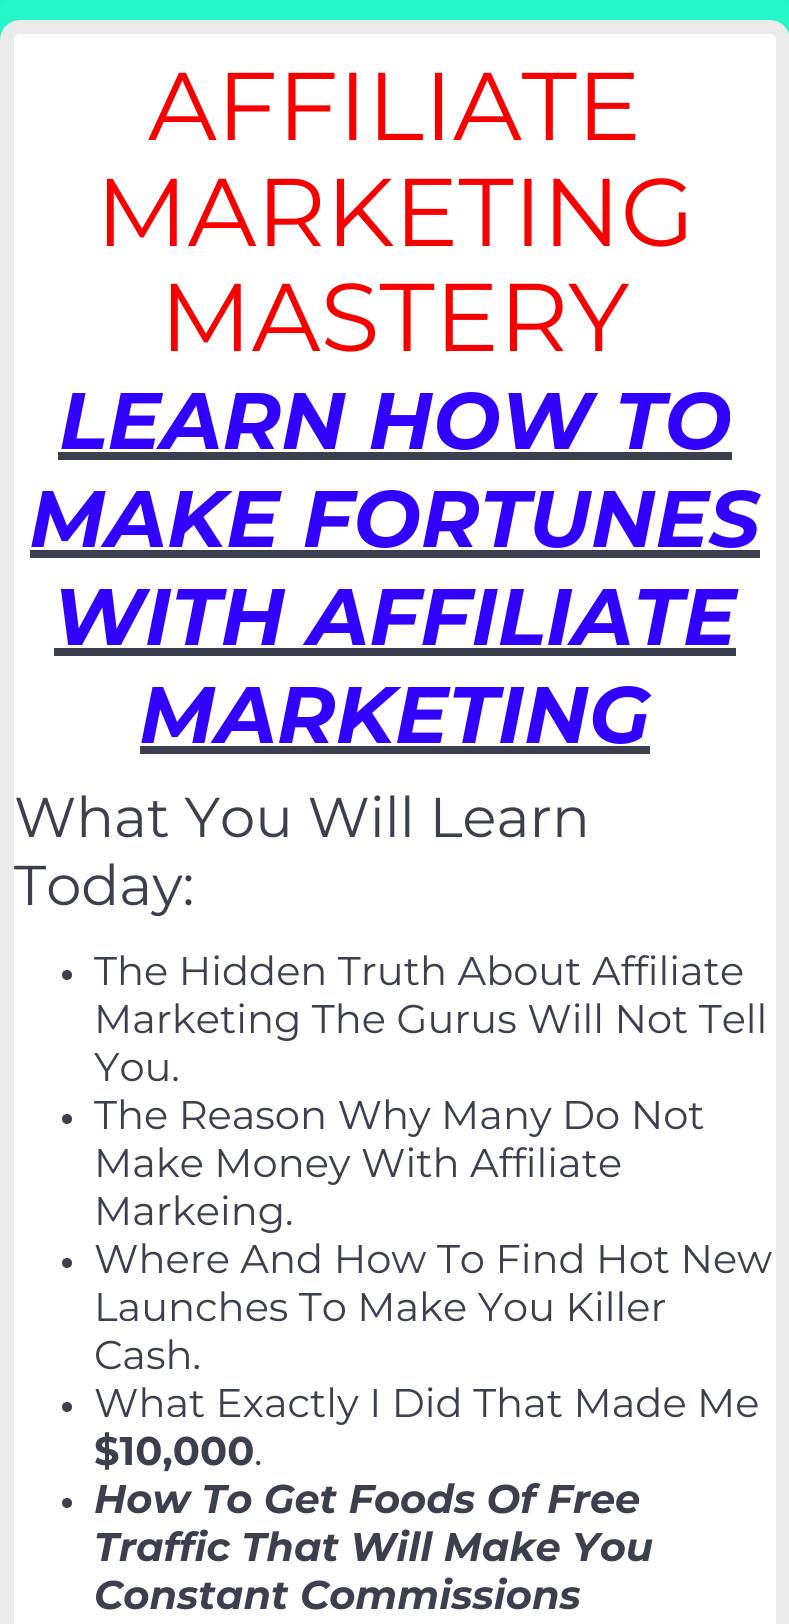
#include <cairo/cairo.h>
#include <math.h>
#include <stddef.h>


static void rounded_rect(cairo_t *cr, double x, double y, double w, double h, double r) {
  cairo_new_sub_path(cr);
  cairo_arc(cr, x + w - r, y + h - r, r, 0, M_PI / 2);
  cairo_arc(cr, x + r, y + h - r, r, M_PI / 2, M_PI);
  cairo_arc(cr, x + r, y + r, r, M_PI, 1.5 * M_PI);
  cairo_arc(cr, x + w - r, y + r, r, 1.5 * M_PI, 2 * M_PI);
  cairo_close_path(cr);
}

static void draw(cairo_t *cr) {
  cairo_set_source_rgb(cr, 33 / 255.0, 243 / 255.0, 198 / 255.0);
  cairo_paint(cr);
  cairo_set_source_rgb(cr, 36 / 255.0, 246 / 255.0, 200 / 255.0);
  rounded_rect(cr, 0, 0, 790, 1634, 10);
  cairo_fill(cr);
  cairo_set_source_rgb(cr, 1, 1, 1);
  rounded_rect(cr, 7, 27, 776, 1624, 13);
  cairo_fill_preserve(cr);
  cairo_set_source_rgb(cr, 234 / 255.0, 234 / 255.0, 234 / 255.0);
  cairo_set_line_width(cr, 14);
  cairo_stroke(cr);
  cairo_set_source_rgb(cr, 60 / 255.0, 63 / 255.0, 77 / 255.0);
  cairo_rectangle(cr, 58, 452, 674, 8);
  cairo_fill(cr);
  cairo_rectangle(cr, 30, 550, 730, 8);
  cairo_fill(cr);
  cairo_rectangle(cr, 54, 648, 682, 8);
  cairo_fill(cr);
  cairo_rectangle(cr, 140, 746, 510, 8);
  cairo_fill(cr);
  cairo_arc(cr, 67, 975, 5, 0, 2 * M_PI);
  cairo_fill(cr);
  cairo_arc(cr, 67, 1119, 5, 0, 2 * M_PI);
  cairo_fill(cr);
  cairo_arc(cr, 67, 1263, 5, 0, 2 * M_PI);
  cairo_fill(cr);
  cairo_arc(cr, 67, 1407, 5, 0, 2 * M_PI);
  cairo_fill(cr);
  cairo_arc(cr, 67, 1503, 5, 0, 2 * M_PI);
  cairo_fill(cr);
  cairo_select_font_face(cr, "Montserrat", CAIRO_FONT_SLANT_NORMAL, CAIRO_FONT_WEIGHT_NORMAL);
  cairo_set_font_size(cr, 96);
  cairo_set_source_rgb(cr, 247 / 255.0, 0, 0);
  cairo_move_to(cr, 148, 140);
  cairo_show_text(cr, "AFFILIATE");
  cairo_move_to(cr, 96, 246);
  cairo_show_text(cr, "MARKETING");
  cairo_move_to(cr, 160, 351);
  cairo_show_text(cr, "MASTERY");
  cairo_select_font_face(cr, "Montserrat", CAIRO_FONT_SLANT_ITALIC, CAIRO_FONT_WEIGHT_BOLD);
  cairo_set_font_size(cr, 80);
  cairo_set_source_rgb(cr, 50 / 255.0, 0, 1);
  cairo_move_to(cr, 59, 449);
  cairo_show_text(cr, "LEARN HOW TO");
  cairo_move_to(cr, 29, 547);
  cairo_show_text(cr, "MAKE FORTUNES");
  cairo_move_to(cr, 53, 645);
  cairo_show_text(cr, "WITH AFFILIATE");
  cairo_move_to(cr, 139, 743);
  cairo_show_text(cr, "MARKETING");
  cairo_select_font_face(cr, "Montserrat", CAIRO_FONT_SLANT_NORMAL, CAIRO_FONT_WEIGHT_NORMAL);
  cairo_set_font_size(cr, 56);
  cairo_set_source_rgb(cr, 60 / 255.0, 63 / 255.0, 77 / 255.0);
  cairo_move_to(cr, 14, 837);
  cairo_show_text(cr, "What You Will Learn");
  cairo_move_to(cr, 14, 905);
  cairo_show_text(cr, "Today:");
  cairo_set_font_size(cr, 40);
  cairo_move_to(cr, 94, 985);
  cairo_show_text(cr, "The Hidden Truth About Affiliate");
  cairo_move_to(cr, 94, 1033);
  cairo_show_text(cr, "Marketing The Gurus Will Not Tell");
  cairo_move_to(cr, 94, 1081);
  cairo_show_text(cr, "You.");
  cairo_move_to(cr, 94, 1129);
  cairo_show_text(cr, "The Reason Why Many Do Not");
  cairo_move_to(cr, 94, 1177);
  cairo_show_text(cr, "Make Money With Affiliate");
  cairo_move_to(cr, 94, 1225);
  cairo_show_text(cr, "Markeing.");
  cairo_move_to(cr, 94, 1273);
  cairo_show_text(cr, "Where And How To Find Hot New");
  cairo_move_to(cr, 94, 1321);
  cairo_show_text(cr, "Launches To Make You Killer");
  cairo_move_to(cr, 94, 1369);
  cairo_show_text(cr, "Cash.");
  cairo_move_to(cr, 94, 1417);
  cairo_show_text(cr, "What Exactly I Did That Made Me");
  cairo_select_font_face(cr, "Montserrat", CAIRO_FONT_SLANT_NORMAL, CAIRO_FONT_WEIGHT_BOLD);
  cairo_move_to(cr, 94, 1465);
  cairo_show_text(cr, "$10,000");
  cairo_select_font_face(cr, "Montserrat", CAIRO_FONT_SLANT_NORMAL, CAIRO_FONT_WEIGHT_NORMAL);
  cairo_move_to(cr, 254, 1465);
  cairo_show_text(cr, ".");
  cairo_select_font_face(cr, "Montserrat", CAIRO_FONT_SLANT_ITALIC, CAIRO_FONT_WEIGHT_BOLD);
  cairo_move_to(cr, 94, 1513);
  cairo_show_text(cr, "How To Get Foods Of Free");
  cairo_move_to(cr, 94, 1561);
  cairo_show_text(cr, "Traffic That Will Make You");
  cairo_move_to(cr, 94, 1609);
  cairo_show_text(cr, "Constant Commissions");
}

int main(void) {
  cairo_surface_t *surface = cairo_image_surface_create(CAIRO_FORMAT_RGB24, 789, 1624);
  cairo_t *cr = cairo_create(surface);
  cairo_font_options_t *options = cairo_font_options_create();
  cairo_font_options_set_hint_metrics(options, CAIRO_HINT_METRICS_OFF);
  cairo_font_options_set_hint_style(options, CAIRO_HINT_STYLE_NONE);
  cairo_set_font_options(cr, options);
  cairo_set_miter_limit(cr, 4);
  draw(cr);
  cairo_surface_write_to_png(surface, "out.png");
  cairo_font_options_destroy(options);
  cairo_destroy(cr);
  cairo_surface_destroy(surface);
  return 0;
}
